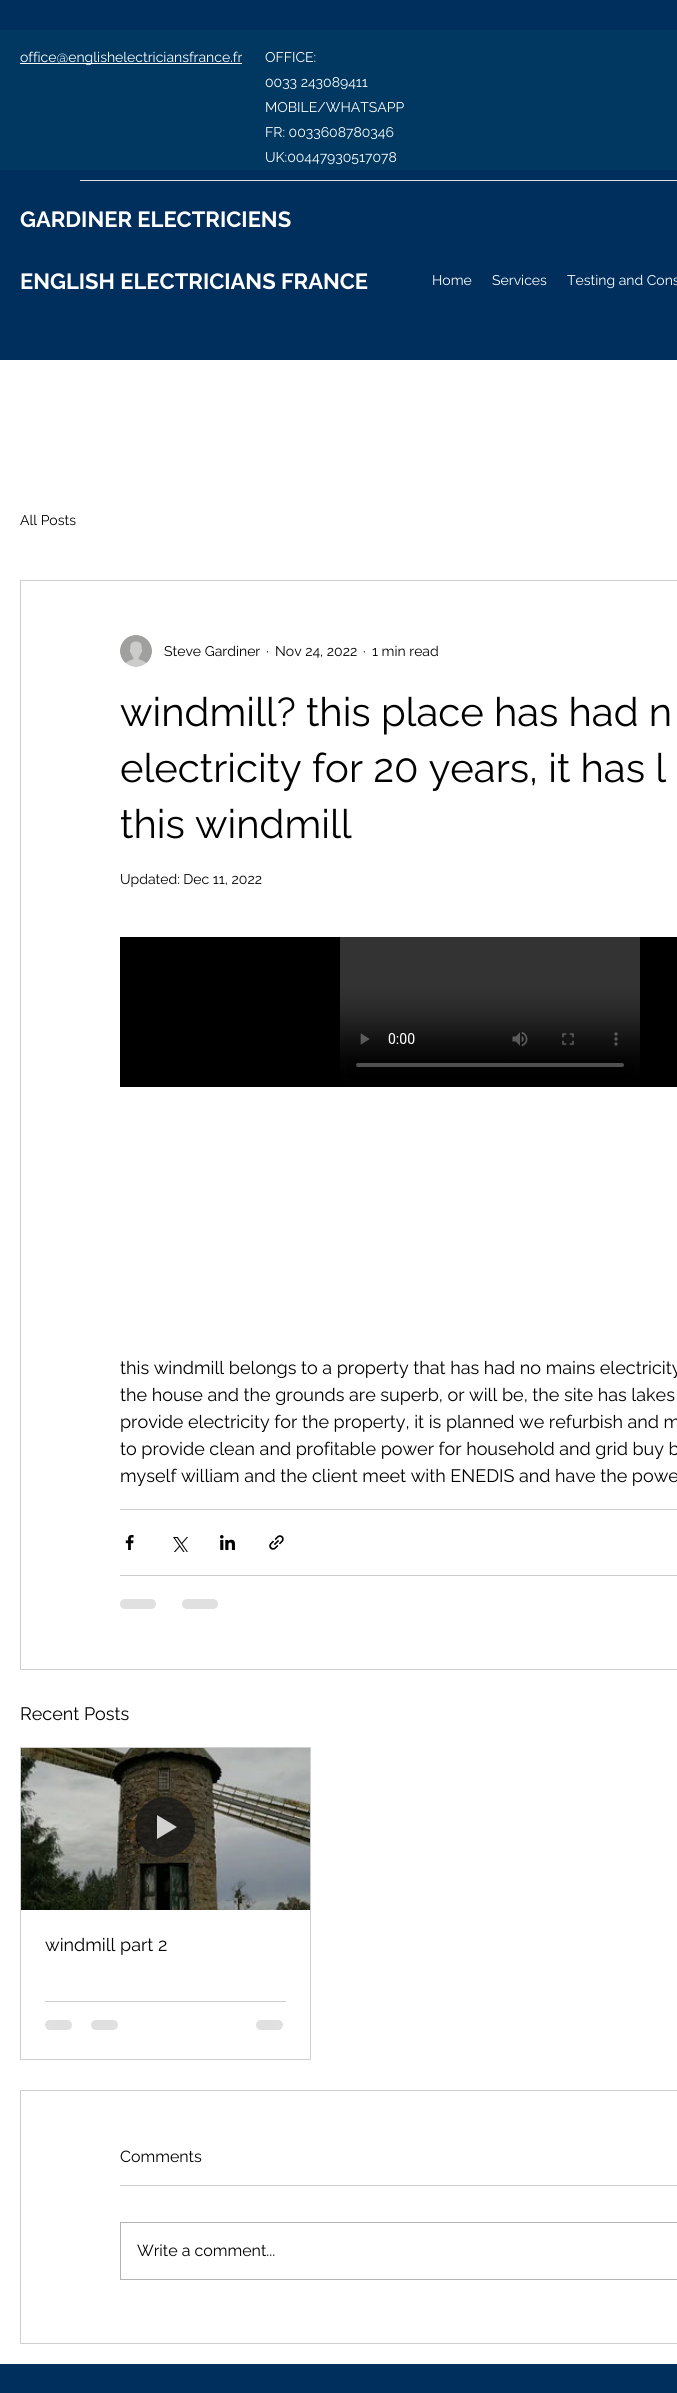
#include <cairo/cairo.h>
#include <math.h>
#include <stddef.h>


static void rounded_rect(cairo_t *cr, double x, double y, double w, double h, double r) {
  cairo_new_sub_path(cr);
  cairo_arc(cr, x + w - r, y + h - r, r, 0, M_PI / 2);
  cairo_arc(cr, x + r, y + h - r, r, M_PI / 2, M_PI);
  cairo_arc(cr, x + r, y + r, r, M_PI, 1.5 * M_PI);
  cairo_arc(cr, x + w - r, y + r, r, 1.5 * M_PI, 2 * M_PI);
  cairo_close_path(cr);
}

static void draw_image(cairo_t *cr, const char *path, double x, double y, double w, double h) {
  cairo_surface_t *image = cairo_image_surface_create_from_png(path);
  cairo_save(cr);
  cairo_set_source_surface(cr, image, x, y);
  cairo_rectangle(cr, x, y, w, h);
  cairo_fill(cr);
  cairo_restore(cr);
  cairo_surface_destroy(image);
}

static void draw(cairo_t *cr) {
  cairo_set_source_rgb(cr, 1, 1, 1);
  cairo_paint(cr);
  cairo_set_source_rgb(cr, 0, 46 / 255.0, 93 / 255.0);
  cairo_rectangle(cr, 0, 0, 677, 360);
  cairo_fill(cr);
  cairo_set_source_rgb(cr, 0, 56 / 255.0, 98 / 255.0);
  cairo_rectangle(cr, 0, 30, 677, 140);
  cairo_fill(cr);
  cairo_set_source_rgb(cr, 1, 1, 1);
  cairo_rectangle(cr, 20, 63, 222, 1);
  cairo_fill(cr);
  cairo_set_source_rgb(cr, 217 / 255.0, 224 / 255.0, 231 / 255.0);
  cairo_rectangle(cr, 80, 180, 597, 1);
  cairo_fill(cr);
  cairo_rectangle(cr, 20.5, 580.5, 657, 1089);
  cairo_set_source_rgb(cr, 207 / 255.0, 207 / 255.0, 207 / 255.0);
  cairo_set_line_width(cr, 1);
  cairo_stroke(cr);
  draw_image(cr, "images/1.png", 120, 635, 32, 32);
  draw_image(cr, "images/2.png", 120, 937, 557, 150);
  cairo_set_source_rgb(cr, 204 / 255.0, 204 / 255.0, 204 / 255.0);
  cairo_rectangle(cr, 120, 1509, 557, 1);
  cairo_fill(cr);
  draw_image(cr, "images/3.png", 125, 1535, 9, 15);
  draw_image(cr, "images/4.png", 173, 1537, 15, 15);
  draw_image(cr, "images/5.png", 220, 1535, 15, 15);
  draw_image(cr, "images/6.png", 269, 1535, 15, 15);
  cairo_rectangle(cr, 120, 1575, 557, 1);
  cairo_fill(cr);
  cairo_set_source_rgb(cr, 224 / 255.0, 224 / 255.0, 224 / 255.0);
  rounded_rect(cr, 120, 1599, 36, 10, 5);
  cairo_fill(cr);
  rounded_rect(cr, 182, 1599, 36, 10, 5);
  cairo_fill(cr);
  cairo_rectangle(cr, 20.5, 1747.5, 290, 312);
  cairo_set_source_rgb(cr, 207 / 255.0, 207 / 255.0, 207 / 255.0);
  cairo_stroke(cr);
  draw_image(cr, "images/7.png", 21, 1748, 289, 162);
  cairo_set_source_rgba(cr, 26 / 255.0, 26 / 255.0, 26 / 255.0, 0.8);
  cairo_arc(cr, 165, 1827, 30, 0, 2 * M_PI);
  cairo_fill(cr);
  cairo_set_source_rgba(cr, 1, 1, 1, 0.8);
  cairo_new_path(cr);
  cairo_move_to(cr, 157, 1815);
  cairo_line_to(cr, 157, 1839);
  cairo_line_to(cr, 177, 1827);
  cairo_close_path(cr);
  cairo_fill(cr);
  cairo_set_source_rgb(cr, 204 / 255.0, 204 / 255.0, 204 / 255.0);
  cairo_rectangle(cr, 45, 2001, 241, 1);
  cairo_fill(cr);
  cairo_set_source_rgb(cr, 224 / 255.0, 224 / 255.0, 224 / 255.0);
  rounded_rect(cr, 45, 2020, 27, 10, 5);
  cairo_fill(cr);
  rounded_rect(cr, 91, 2020, 27, 10, 5);
  cairo_fill(cr);
  rounded_rect(cr, 256, 2020, 27, 10, 5);
  cairo_fill(cr);
  cairo_rectangle(cr, 20.5, 2090.5, 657, 253);
  cairo_set_source_rgb(cr, 207 / 255.0, 207 / 255.0, 207 / 255.0);
  cairo_stroke(cr);
  cairo_set_source_rgb(cr, 204 / 255.0, 204 / 255.0, 204 / 255.0);
  cairo_rectangle(cr, 120, 2185, 557, 1);
  cairo_fill(cr);
  cairo_rectangle(cr, 120.5, 2222.5, 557, 57);
  cairo_set_source_rgb(cr, 179 / 255.0, 179 / 255.0, 179 / 255.0);
  cairo_stroke(cr);
  cairo_set_source_rgb(cr, 0, 46 / 255.0, 93 / 255.0);
  cairo_rectangle(cr, 0, 2364, 677, 29);
  cairo_fill(cr);
  cairo_select_font_face(cr, "Raleway", CAIRO_FONT_SLANT_NORMAL, CAIRO_FONT_WEIGHT_NORMAL);
  cairo_set_font_size(cr, 14);
  cairo_set_source_rgb(cr, 1, 1, 1);
  cairo_move_to(cr, 20, 62);
  cairo_show_text(cr, "office@englishelectriciansfrance.fr");
  cairo_move_to(cr, 265, 62);
  cairo_show_text(cr, "OFFICE:");
  cairo_move_to(cr, 265, 87);
  cairo_show_text(cr, "0033 243089411");
  cairo_move_to(cr, 265, 112);
  cairo_show_text(cr, "MOBILE/WHATSAPP");
  cairo_move_to(cr, 265, 137);
  cairo_show_text(cr, "FR: 0033608780346");
  cairo_move_to(cr, 265, 162);
  cairo_show_text(cr, "UK:00447930517078");
  cairo_select_font_face(cr, "Raleway", CAIRO_FONT_SLANT_NORMAL, CAIRO_FONT_WEIGHT_BOLD);
  cairo_set_font_size(cr, 22);
  cairo_move_to(cr, 20, 227);
  cairo_show_text(cr, "GARDINER ELECTRICIENS");
  cairo_move_to(cr, 20, 289);
  cairo_show_text(cr, "ENGLISH ELECTRICIANS FRANCE");
  cairo_select_font_face(cr, "Raleway", CAIRO_FONT_SLANT_NORMAL, CAIRO_FONT_WEIGHT_NORMAL);
  cairo_set_font_size(cr, 14);
  cairo_move_to(cr, 432, 285);
  cairo_show_text(cr, "Home");
  cairo_move_to(cr, 492, 285);
  cairo_show_text(cr, "Services");
  cairo_move_to(cr, 567, 285);
  cairo_show_text(cr, "Testing and Cons");
  cairo_set_source_rgb(cr, 0, 0, 0);
  cairo_move_to(cr, 20, 525);
  cairo_show_text(cr, "All Posts");
  cairo_move_to(cr, 164, 656);
  cairo_show_text(cr, "Steve Gardiner");
  cairo_move_to(cr, 266, 656);
  cairo_show_text(cr, "·");
  cairo_move_to(cr, 275, 656);
  cairo_show_text(cr, "Nov 24, 2022");
  cairo_move_to(cr, 363, 656);
  cairo_show_text(cr, "·");
  cairo_move_to(cr, 372, 656);
  cairo_show_text(cr, "1 min read");
  cairo_set_font_size(cr, 40);
  cairo_move_to(cr, 120, 726);
  cairo_show_text(cr, "windmill? this place has had n");
  cairo_move_to(cr, 120, 782);
  cairo_show_text(cr, "electricity for 20 years, it has l");
  cairo_move_to(cr, 120, 838);
  cairo_show_text(cr, "this windmill");
  cairo_set_font_size(cr, 14);
  cairo_move_to(cr, 120, 884);
  cairo_show_text(cr, "Updated: Dec 11, 2022");
  cairo_set_font_size(cr, 18);
  cairo_move_to(cr, 120, 1374);
  cairo_show_text(cr, "this windmill belongs to a property that has had no mains electricity");
  cairo_move_to(cr, 120, 1401);
  cairo_show_text(cr, "the house and the grounds are superb, or will be, the site has lakes");
  cairo_move_to(cr, 120, 1428);
  cairo_show_text(cr, "provide electricity for the property, it is planned we refurbish and m");
  cairo_move_to(cr, 120, 1455);
  cairo_show_text(cr, "to provide clean and profitable power for household and grid buy b");
  cairo_move_to(cr, 120, 1482);
  cairo_show_text(cr, "myself william and the client meet with ENEDIS and have the powe");
  cairo_move_to(cr, 20, 1720);
  cairo_show_text(cr, "Recent Posts");
  cairo_move_to(cr, 45, 1951);
  cairo_show_text(cr, "windmill part 2");
  cairo_set_font_size(cr, 16);
  cairo_move_to(cr, 120, 2162);
  cairo_show_text(cr, "Comments");
  cairo_move_to(cr, 137, 2256);
  cairo_show_text(cr, "Write a comment...");
}

int main(void) {
  cairo_surface_t *surface = cairo_image_surface_create(CAIRO_FORMAT_RGB24, 677, 2393);
  cairo_t *cr = cairo_create(surface);
  cairo_font_options_t *options = cairo_font_options_create();
  cairo_font_options_set_hint_metrics(options, CAIRO_HINT_METRICS_OFF);
  cairo_font_options_set_hint_style(options, CAIRO_HINT_STYLE_NONE);
  cairo_set_font_options(cr, options);
  cairo_set_miter_limit(cr, 4);
  draw(cr);
  cairo_surface_write_to_png(surface, "out.png");
  cairo_font_options_destroy(options);
  cairo_destroy(cr);
  cairo_surface_destroy(surface);
  return 0;
}
